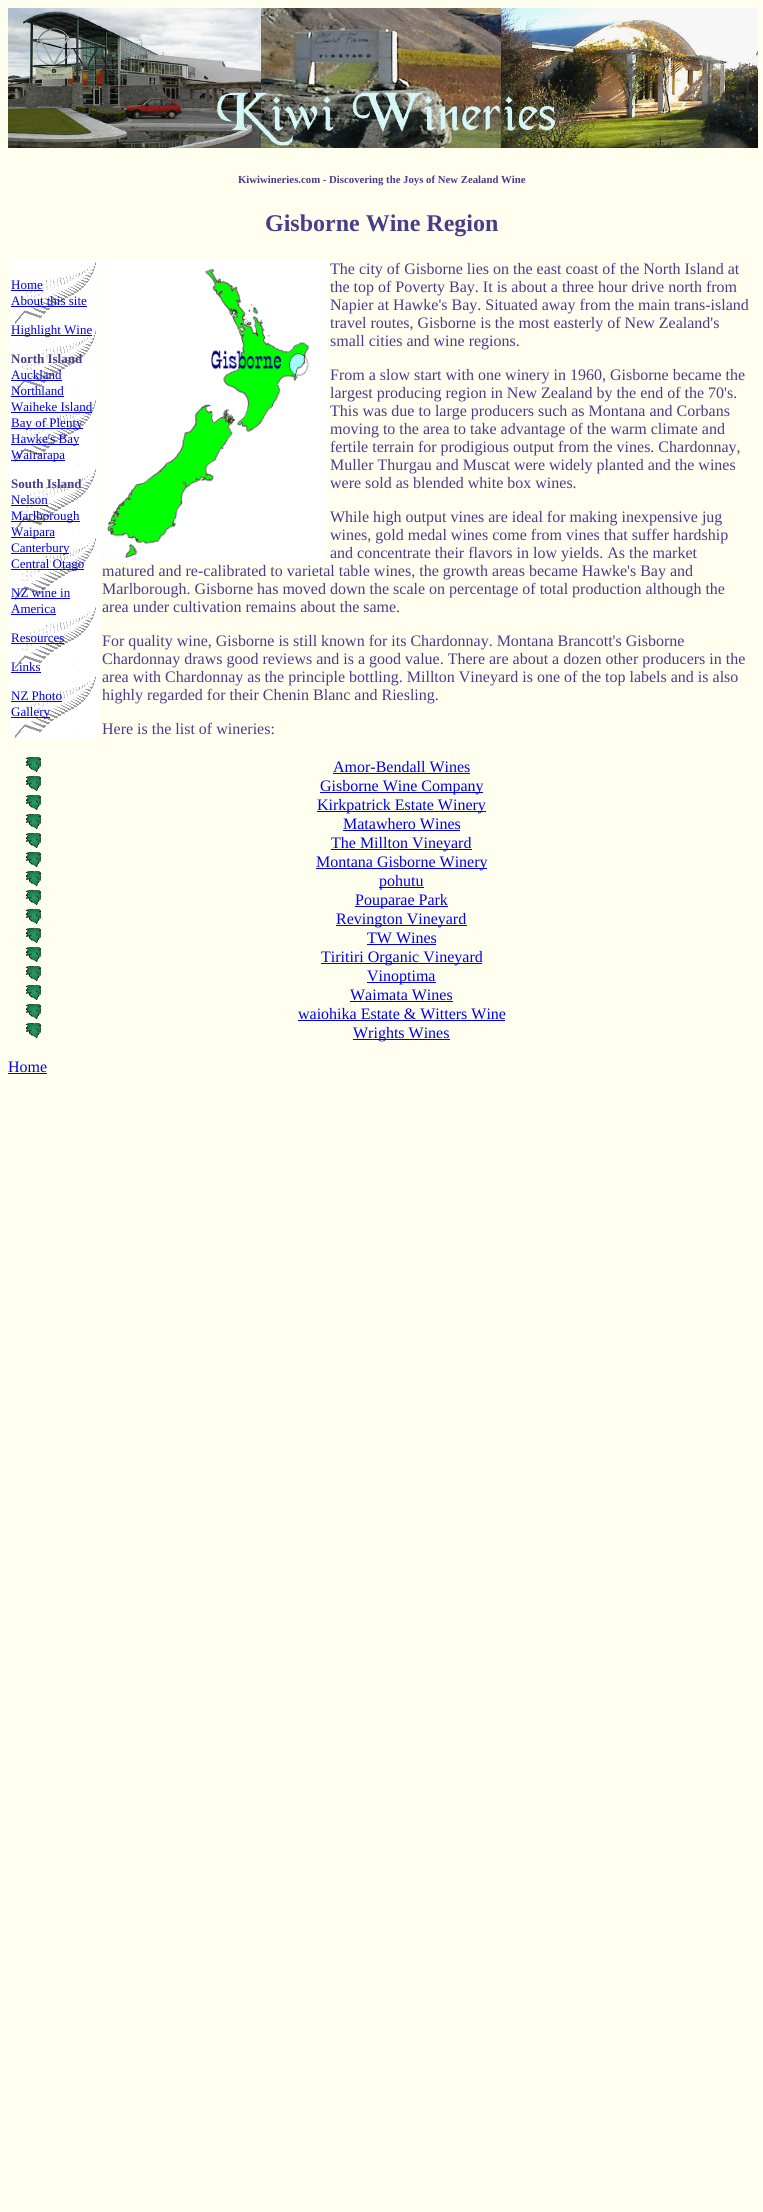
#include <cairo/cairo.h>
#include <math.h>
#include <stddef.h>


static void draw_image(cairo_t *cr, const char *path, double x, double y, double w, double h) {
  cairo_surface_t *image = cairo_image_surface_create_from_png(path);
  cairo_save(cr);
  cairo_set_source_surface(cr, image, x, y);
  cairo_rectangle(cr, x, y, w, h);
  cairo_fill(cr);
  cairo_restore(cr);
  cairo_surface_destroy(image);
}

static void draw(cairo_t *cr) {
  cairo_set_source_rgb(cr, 1, 1, 240 / 255.0);
  cairo_paint(cr);
  draw_image(cr, "images/1.png", 8, 8, 750, 140);
  draw_image(cr, "images/2.png", 10, 259, 89, 480);
  cairo_set_source_rgb(cr, 0, 0, 238 / 255.0);
  cairo_rectangle(cr, 11, 290, 32, 1);
  cairo_fill(cr);
  cairo_rectangle(cr, 11, 306, 76, 1);
  cairo_fill(cr);
  cairo_rectangle(cr, 11, 335, 81, 1);
  cairo_fill(cr);
  cairo_rectangle(cr, 11, 380, 51, 1);
  cairo_fill(cr);
  cairo_rectangle(cr, 11, 396, 53, 1);
  cairo_fill(cr);
  cairo_rectangle(cr, 11, 412, 81, 1);
  cairo_fill(cr);
  cairo_rectangle(cr, 11, 428, 72, 1);
  cairo_fill(cr);
  cairo_rectangle(cr, 11, 444, 68, 1);
  cairo_fill(cr);
  cairo_rectangle(cr, 11, 460, 54, 1);
  cairo_fill(cr);
  cairo_rectangle(cr, 11, 505, 37, 1);
  cairo_fill(cr);
  cairo_rectangle(cr, 11, 521, 69, 1);
  cairo_fill(cr);
  cairo_rectangle(cr, 11, 537, 44, 1);
  cairo_fill(cr);
  cairo_rectangle(cr, 11, 553, 58, 1);
  cairo_fill(cr);
  cairo_rectangle(cr, 11, 569, 73, 1);
  cairo_fill(cr);
  cairo_rectangle(cr, 11, 598, 59, 1);
  cairo_fill(cr);
  cairo_rectangle(cr, 11, 614, 45, 1);
  cairo_fill(cr);
  cairo_rectangle(cr, 11, 643, 53, 1);
  cairo_fill(cr);
  cairo_rectangle(cr, 11, 672, 30, 1);
  cairo_fill(cr);
  cairo_rectangle(cr, 11, 701, 51, 1);
  cairo_fill(cr);
  cairo_rectangle(cr, 11, 717, 39, 1);
  cairo_fill(cr);
  draw_image(cr, "images/3.png", 102, 260, 225, 302);
  draw_image(cr, "images/4.png", 26, 757, 15, 15);
  cairo_rectangle(cr, 333, 773, 137, 1);
  cairo_fill(cr);
  draw_image(cr, "images/4.png", 26, 776, 15, 15);
  cairo_rectangle(cr, 320, 792, 163, 1);
  cairo_fill(cr);
  draw_image(cr, "images/4.png", 26, 795, 15, 15);
  cairo_rectangle(cr, 317, 811, 169, 1);
  cairo_fill(cr);
  draw_image(cr, "images/4.png", 26, 814, 15, 15);
  cairo_rectangle(cr, 343, 830, 117, 1);
  cairo_fill(cr);
  draw_image(cr, "images/4.png", 26, 833, 15, 15);
  cairo_rectangle(cr, 331, 849, 141, 1);
  cairo_fill(cr);
  draw_image(cr, "images/4.png", 26, 852, 15, 15);
  cairo_rectangle(cr, 316, 868, 171, 1);
  cairo_fill(cr);
  draw_image(cr, "images/4.png", 26, 871, 15, 15);
  cairo_rectangle(cr, 379, 887, 45, 1);
  cairo_fill(cr);
  draw_image(cr, "images/4.png", 26, 890, 15, 15);
  cairo_rectangle(cr, 355, 906, 93, 1);
  cairo_fill(cr);
  draw_image(cr, "images/4.png", 26, 909, 15, 15);
  cairo_rectangle(cr, 336, 925, 131, 1);
  cairo_fill(cr);
  draw_image(cr, "images/4.png", 26, 928, 15, 15);
  cairo_rectangle(cr, 367, 944, 69, 1);
  cairo_fill(cr);
  draw_image(cr, "images/4.png", 26, 947, 15, 15);
  cairo_rectangle(cr, 321, 963, 161, 1);
  cairo_fill(cr);
  draw_image(cr, "images/4.png", 26, 966, 15, 15);
  cairo_rectangle(cr, 367, 982, 69, 1);
  cairo_fill(cr);
  draw_image(cr, "images/4.png", 26, 985, 15, 15);
  cairo_rectangle(cr, 350, 1001, 103, 1);
  cairo_fill(cr);
  draw_image(cr, "images/4.png", 26, 1004, 15, 15);
  cairo_rectangle(cr, 298, 1020, 207, 1);
  cairo_fill(cr);
  draw_image(cr, "images/4.png", 26, 1023, 15, 15);
  cairo_rectangle(cr, 353, 1039, 97, 1);
  cairo_fill(cr);
  cairo_rectangle(cr, 8, 1073, 39, 1);
  cairo_fill(cr);
  cairo_select_font_face(cr, "Liberation Serif", CAIRO_FONT_SLANT_NORMAL, CAIRO_FONT_WEIGHT_BOLD);
  cairo_set_font_size(cr, 10.75);
  cairo_set_source_rgb(cr, 72 / 255.0, 61 / 255.0, 139 / 255.0);
  cairo_move_to(cr, 238, 183);
  cairo_show_text(cr, "Kiwiwineries.com - Discovering the Joys of New Zealand Wine");
  cairo_set_font_size(cr, 24);
  cairo_move_to(cr, 265, 231);
  cairo_show_text(cr, "Gisborne Wine Region");
  cairo_select_font_face(cr, "Liberation Serif", CAIRO_FONT_SLANT_NORMAL, CAIRO_FONT_WEIGHT_NORMAL);
  cairo_set_font_size(cr, 13);
  cairo_set_source_rgb(cr, 0, 0, 238 / 255.0);
  cairo_move_to(cr, 11, 289);
  cairo_show_text(cr, "Home");
  cairo_move_to(cr, 11, 305);
  cairo_show_text(cr, "About this site");
  cairo_move_to(cr, 11, 334);
  cairo_show_text(cr, "Highlight Wine");
  cairo_select_font_face(cr, "Liberation Serif", CAIRO_FONT_SLANT_NORMAL, CAIRO_FONT_WEIGHT_BOLD);
  cairo_set_source_rgb(cr, 72 / 255.0, 61 / 255.0, 139 / 255.0);
  cairo_move_to(cr, 11, 363);
  cairo_show_text(cr, "North Island");
  cairo_select_font_face(cr, "Liberation Serif", CAIRO_FONT_SLANT_NORMAL, CAIRO_FONT_WEIGHT_NORMAL);
  cairo_set_source_rgb(cr, 0, 0, 238 / 255.0);
  cairo_move_to(cr, 11, 379);
  cairo_show_text(cr, "Auckland");
  cairo_move_to(cr, 11, 395);
  cairo_show_text(cr, "Northland");
  cairo_move_to(cr, 11, 411);
  cairo_show_text(cr, "Waiheke Island");
  cairo_move_to(cr, 11, 427);
  cairo_show_text(cr, "Bay of Plenty");
  cairo_move_to(cr, 11, 443);
  cairo_show_text(cr, "Hawke's Bay");
  cairo_move_to(cr, 11, 459);
  cairo_show_text(cr, "Wairarapa");
  cairo_select_font_face(cr, "Liberation Serif", CAIRO_FONT_SLANT_NORMAL, CAIRO_FONT_WEIGHT_BOLD);
  cairo_set_source_rgb(cr, 72 / 255.0, 61 / 255.0, 139 / 255.0);
  cairo_move_to(cr, 11, 488);
  cairo_show_text(cr, "South Island");
  cairo_select_font_face(cr, "Liberation Serif", CAIRO_FONT_SLANT_NORMAL, CAIRO_FONT_WEIGHT_NORMAL);
  cairo_set_source_rgb(cr, 0, 0, 238 / 255.0);
  cairo_move_to(cr, 11, 504);
  cairo_show_text(cr, "Nelson");
  cairo_move_to(cr, 11, 520);
  cairo_show_text(cr, "Marlborough");
  cairo_move_to(cr, 11, 536);
  cairo_show_text(cr, "Waipara");
  cairo_move_to(cr, 11, 552);
  cairo_show_text(cr, "Canterbury");
  cairo_move_to(cr, 11, 568);
  cairo_show_text(cr, "Central Otago");
  cairo_move_to(cr, 11, 597);
  cairo_show_text(cr, "NZ wine in");
  cairo_move_to(cr, 11, 613);
  cairo_show_text(cr, "America");
  cairo_move_to(cr, 11, 642);
  cairo_show_text(cr, "Resources");
  cairo_move_to(cr, 11, 671);
  cairo_show_text(cr, "Links");
  cairo_move_to(cr, 11, 700);
  cairo_show_text(cr, "NZ Photo");
  cairo_move_to(cr, 11, 716);
  cairo_show_text(cr, "Gallery");
  cairo_set_font_size(cr, 16);
  cairo_set_source_rgb(cr, 72 / 255.0, 61 / 255.0, 139 / 255.0);
  cairo_move_to(cr, 330, 274);
  cairo_show_text(cr, "The city of Gisborne lies on the east coast of the North Island at");
  cairo_move_to(cr, 330, 292);
  cairo_show_text(cr, "the top of Poverty Bay. It is about a three hour drive north from");
  cairo_move_to(cr, 330, 310);
  cairo_show_text(cr, "Napier at Hawke's Bay. Situated away from the main trans-island");
  cairo_move_to(cr, 330, 328);
  cairo_show_text(cr, "travel routes, Gisborne is the most easterly of New Zealand's");
  cairo_move_to(cr, 330, 346);
  cairo_show_text(cr, "small cities and wine regions.");
  cairo_move_to(cr, 330, 380);
  cairo_show_text(cr, "From a slow start with one winery in 1960, Gisborne became the");
  cairo_move_to(cr, 330, 398);
  cairo_show_text(cr, "largest producing region in New Zealand by the end of the 70's.");
  cairo_move_to(cr, 330, 416);
  cairo_show_text(cr, "This was due to large producers such as Montana and Corbans");
  cairo_move_to(cr, 330, 434);
  cairo_show_text(cr, "moving to the area to take advantage of the warm climate and");
  cairo_move_to(cr, 330, 452);
  cairo_show_text(cr, "fertile terrain for prodigious output from the vines. Chardonnay,");
  cairo_move_to(cr, 330, 470);
  cairo_show_text(cr, "Muller Thurgau and Muscat were widely planted and the wines");
  cairo_move_to(cr, 330, 488);
  cairo_show_text(cr, "were sold as blended white box wines.");
  cairo_move_to(cr, 330, 522);
  cairo_show_text(cr, "While high output vines are ideal for making inexpensive jug");
  cairo_move_to(cr, 330, 540);
  cairo_show_text(cr, "wines, gold medal wines come from vines that suffer hardship");
  cairo_move_to(cr, 330, 558);
  cairo_show_text(cr, "and concentrate their flavors in low yields. As the market");
  cairo_move_to(cr, 102, 576);
  cairo_show_text(cr, "matured and re-calibrated to varietal table wines, the growth areas became Hawke's Bay and");
  cairo_move_to(cr, 102, 594);
  cairo_show_text(cr, "Marlborough. Gisborne has moved down the scale on percentage of total production although the");
  cairo_move_to(cr, 102, 612);
  cairo_show_text(cr, "area under cultivation remains about the same.");
  cairo_move_to(cr, 102, 646);
  cairo_show_text(cr, "For quality wine, Gisborne is still known for its Chardonnay. Montana Brancott's Gisborne");
  cairo_move_to(cr, 102, 664);
  cairo_show_text(cr, "Chardonnay draws good reviews and is a good value. There are about a dozen other producers in the");
  cairo_move_to(cr, 102, 682);
  cairo_show_text(cr, "area with Chardonnay as the principle bottling. Millton Vineyard is one of the top labels and is also");
  cairo_move_to(cr, 102, 700);
  cairo_show_text(cr, "highly regarded for their Chenin Blanc and Riesling.");
  cairo_move_to(cr, 102, 734);
  cairo_show_text(cr, "Here is the list of wineries:");
  cairo_set_source_rgb(cr, 0, 0, 238 / 255.0);
  cairo_move_to(cr, 333, 772);
  cairo_show_text(cr, "Amor-Bendall Wines");
  cairo_move_to(cr, 320, 791);
  cairo_show_text(cr, "Gisborne Wine Company");
  cairo_move_to(cr, 317, 810);
  cairo_show_text(cr, "Kirkpatrick Estate Winery");
  cairo_move_to(cr, 343, 829);
  cairo_show_text(cr, "Matawhero Wines");
  cairo_move_to(cr, 331, 848);
  cairo_show_text(cr, "The Millton Vineyard");
  cairo_move_to(cr, 316, 867);
  cairo_show_text(cr, "Montana Gisborne Winery");
  cairo_move_to(cr, 379, 886);
  cairo_show_text(cr, "pohutu");
  cairo_move_to(cr, 355, 905);
  cairo_show_text(cr, "Pouparae Park");
  cairo_move_to(cr, 336, 924);
  cairo_show_text(cr, "Revington Vineyard");
  cairo_move_to(cr, 367, 943);
  cairo_show_text(cr, "TW Wines");
  cairo_move_to(cr, 321, 962);
  cairo_show_text(cr, "Tiritiri Organic Vineyard");
  cairo_move_to(cr, 367, 981);
  cairo_show_text(cr, "Vinoptima");
  cairo_move_to(cr, 350, 1000);
  cairo_show_text(cr, "Waimata Wines");
  cairo_move_to(cr, 298, 1019);
  cairo_show_text(cr, "waiohika Estate & Witters Wine");
  cairo_move_to(cr, 353, 1038);
  cairo_show_text(cr, "Wrights Wines");
  cairo_move_to(cr, 8, 1072);
  cairo_show_text(cr, "Home");
}

int main(void) {
  cairo_surface_t *surface = cairo_image_surface_create(CAIRO_FORMAT_RGB24, 763, 2212);
  cairo_t *cr = cairo_create(surface);
  cairo_font_options_t *options = cairo_font_options_create();
  cairo_font_options_set_hint_metrics(options, CAIRO_HINT_METRICS_OFF);
  cairo_font_options_set_hint_style(options, CAIRO_HINT_STYLE_NONE);
  cairo_set_font_options(cr, options);
  cairo_set_miter_limit(cr, 4);
  draw(cr);
  cairo_surface_write_to_png(surface, "out.png");
  cairo_font_options_destroy(options);
  cairo_destroy(cr);
  cairo_surface_destroy(surface);
  return 0;
}
